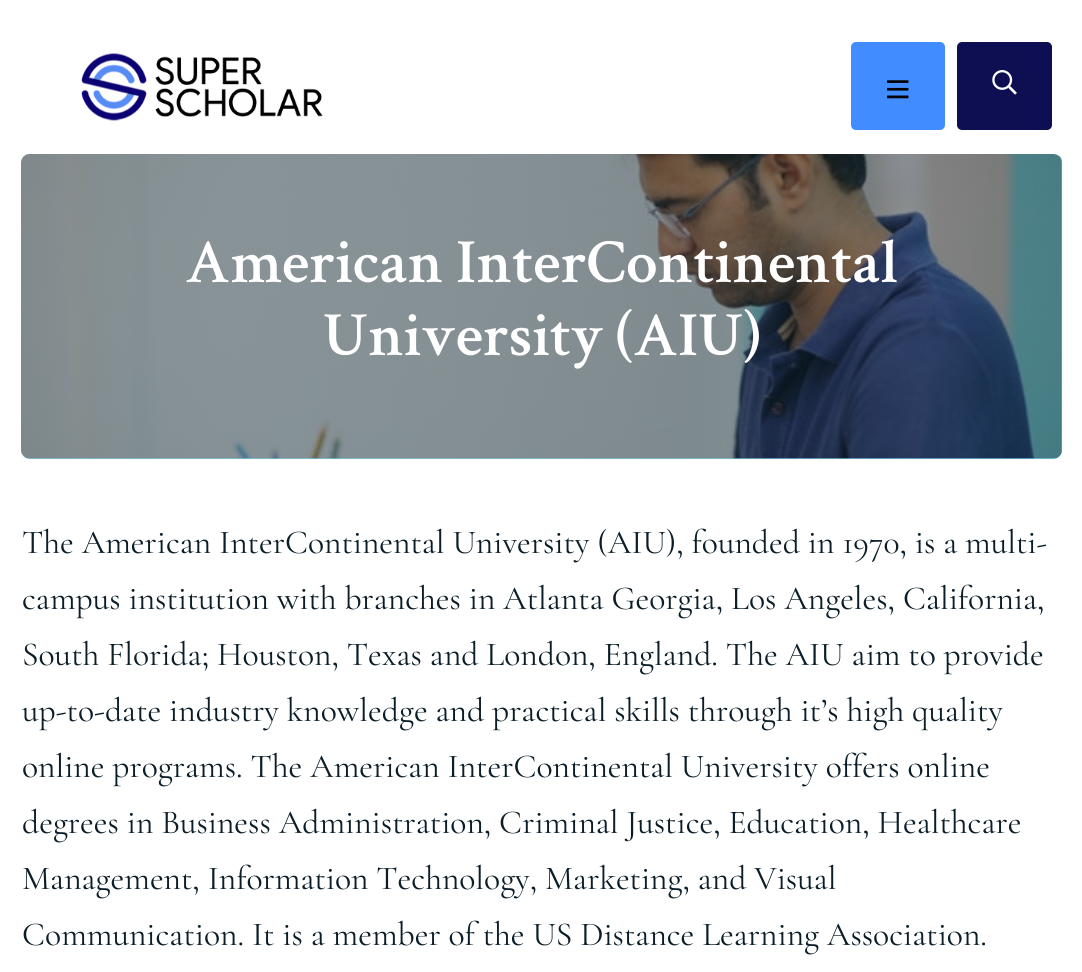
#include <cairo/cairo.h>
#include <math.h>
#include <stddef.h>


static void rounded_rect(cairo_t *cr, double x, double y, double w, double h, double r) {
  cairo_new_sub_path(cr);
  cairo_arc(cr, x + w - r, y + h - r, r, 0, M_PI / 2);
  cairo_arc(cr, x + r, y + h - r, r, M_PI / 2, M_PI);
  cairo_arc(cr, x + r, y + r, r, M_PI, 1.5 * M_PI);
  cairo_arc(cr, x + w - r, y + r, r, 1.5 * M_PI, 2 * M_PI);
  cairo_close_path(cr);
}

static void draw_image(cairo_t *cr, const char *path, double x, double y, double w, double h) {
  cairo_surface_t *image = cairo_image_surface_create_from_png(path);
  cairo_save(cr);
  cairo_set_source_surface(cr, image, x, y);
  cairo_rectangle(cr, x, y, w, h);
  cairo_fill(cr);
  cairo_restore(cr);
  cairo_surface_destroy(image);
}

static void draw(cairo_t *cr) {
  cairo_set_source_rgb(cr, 1, 1, 1);
  cairo_paint(cr);
  draw_image(cr, "images/1.png", 81, 53, 242, 68);
  cairo_set_source_rgb(cr, 65 / 255.0, 140 / 255.0, 1);
  rounded_rect(cr, 851, 42, 94, 88, 5);
  cairo_fill(cr);
  draw_image(cr, "images/2.png", 887, 80, 22, 19);
  cairo_set_source_rgb(cr, 14 / 255.0, 14 / 255.0, 82 / 255.0);
  rounded_rect(cr, 957, 42, 95, 88, 5);
  cairo_fill(cr);
  draw_image(cr, "images/3.png", 992, 70, 25, 25);
  cairo_set_source_rgb(cr, 120 / 255.0, 192 / 255.0, 224 / 255.0);
  rounded_rect(cr, 21, 154, 1041, 305, 9);
  cairo_fill(cr);
  draw_image(cr, "images/4.png", 21, 154, 1042, 305);
  cairo_select_font_face(cr, "Crimson Text SemiBold", CAIRO_FONT_SLANT_NORMAL, CAIRO_FONT_WEIGHT_NORMAL);
  cairo_set_font_size(cr, 63);
  cairo_set_source_rgb(cr, 1, 1, 1);
  cairo_move_to(cr, 185, 282);
  cairo_show_text(cr, "American InterContinental");
  cairo_move_to(cr, 323, 355);
  cairo_show_text(cr, "University (AIU)");
  cairo_select_font_face(cr, "Cormorant Garamond", CAIRO_FONT_SLANT_NORMAL, CAIRO_FONT_WEIGHT_NORMAL);
  cairo_set_font_size(cr, 33.6);
  cairo_set_source_rgb(cr, 10 / 255.0, 29 / 255.0, 40 / 255.0);
  cairo_move_to(cr, 22, 553);
  cairo_show_text(cr, "The American InterContinental University (AIU), founded in 1970, is a multi-");
  cairo_move_to(cr, 22, 609);
  cairo_show_text(cr, "campus institution with branches in Atlanta Georgia, Los Angeles, California,");
  cairo_move_to(cr, 22, 665);
  cairo_show_text(cr, "South Florida; Houston, Texas and London, England. The AIU aim to provide");
  cairo_move_to(cr, 22, 721);
  cairo_show_text(cr, "up-to-date industry knowledge and practical skills through it’s high quality");
  cairo_move_to(cr, 22, 777);
  cairo_show_text(cr, "online programs. The American InterContinental University offers online");
  cairo_move_to(cr, 22, 833);
  cairo_show_text(cr, "degrees in Business Administration, Criminal Justice, Education, Healthcare");
  cairo_move_to(cr, 22, 889);
  cairo_show_text(cr, "Management, Information Technology, Marketing, and Visual");
  cairo_move_to(cr, 22, 945);
  cairo_show_text(cr, "Communication. It is a member of the US Distance Learning Association.");
}

int main(void) {
  cairo_surface_t *surface = cairo_image_surface_create(CAIRO_FORMAT_RGB24, 1082, 972);
  cairo_t *cr = cairo_create(surface);
  cairo_font_options_t *options = cairo_font_options_create();
  cairo_font_options_set_hint_metrics(options, CAIRO_HINT_METRICS_OFF);
  cairo_font_options_set_hint_style(options, CAIRO_HINT_STYLE_NONE);
  cairo_set_font_options(cr, options);
  cairo_set_miter_limit(cr, 4);
  draw(cr);
  cairo_surface_write_to_png(surface, "out.png");
  cairo_font_options_destroy(options);
  cairo_destroy(cr);
  cairo_surface_destroy(surface);
  return 0;
}
